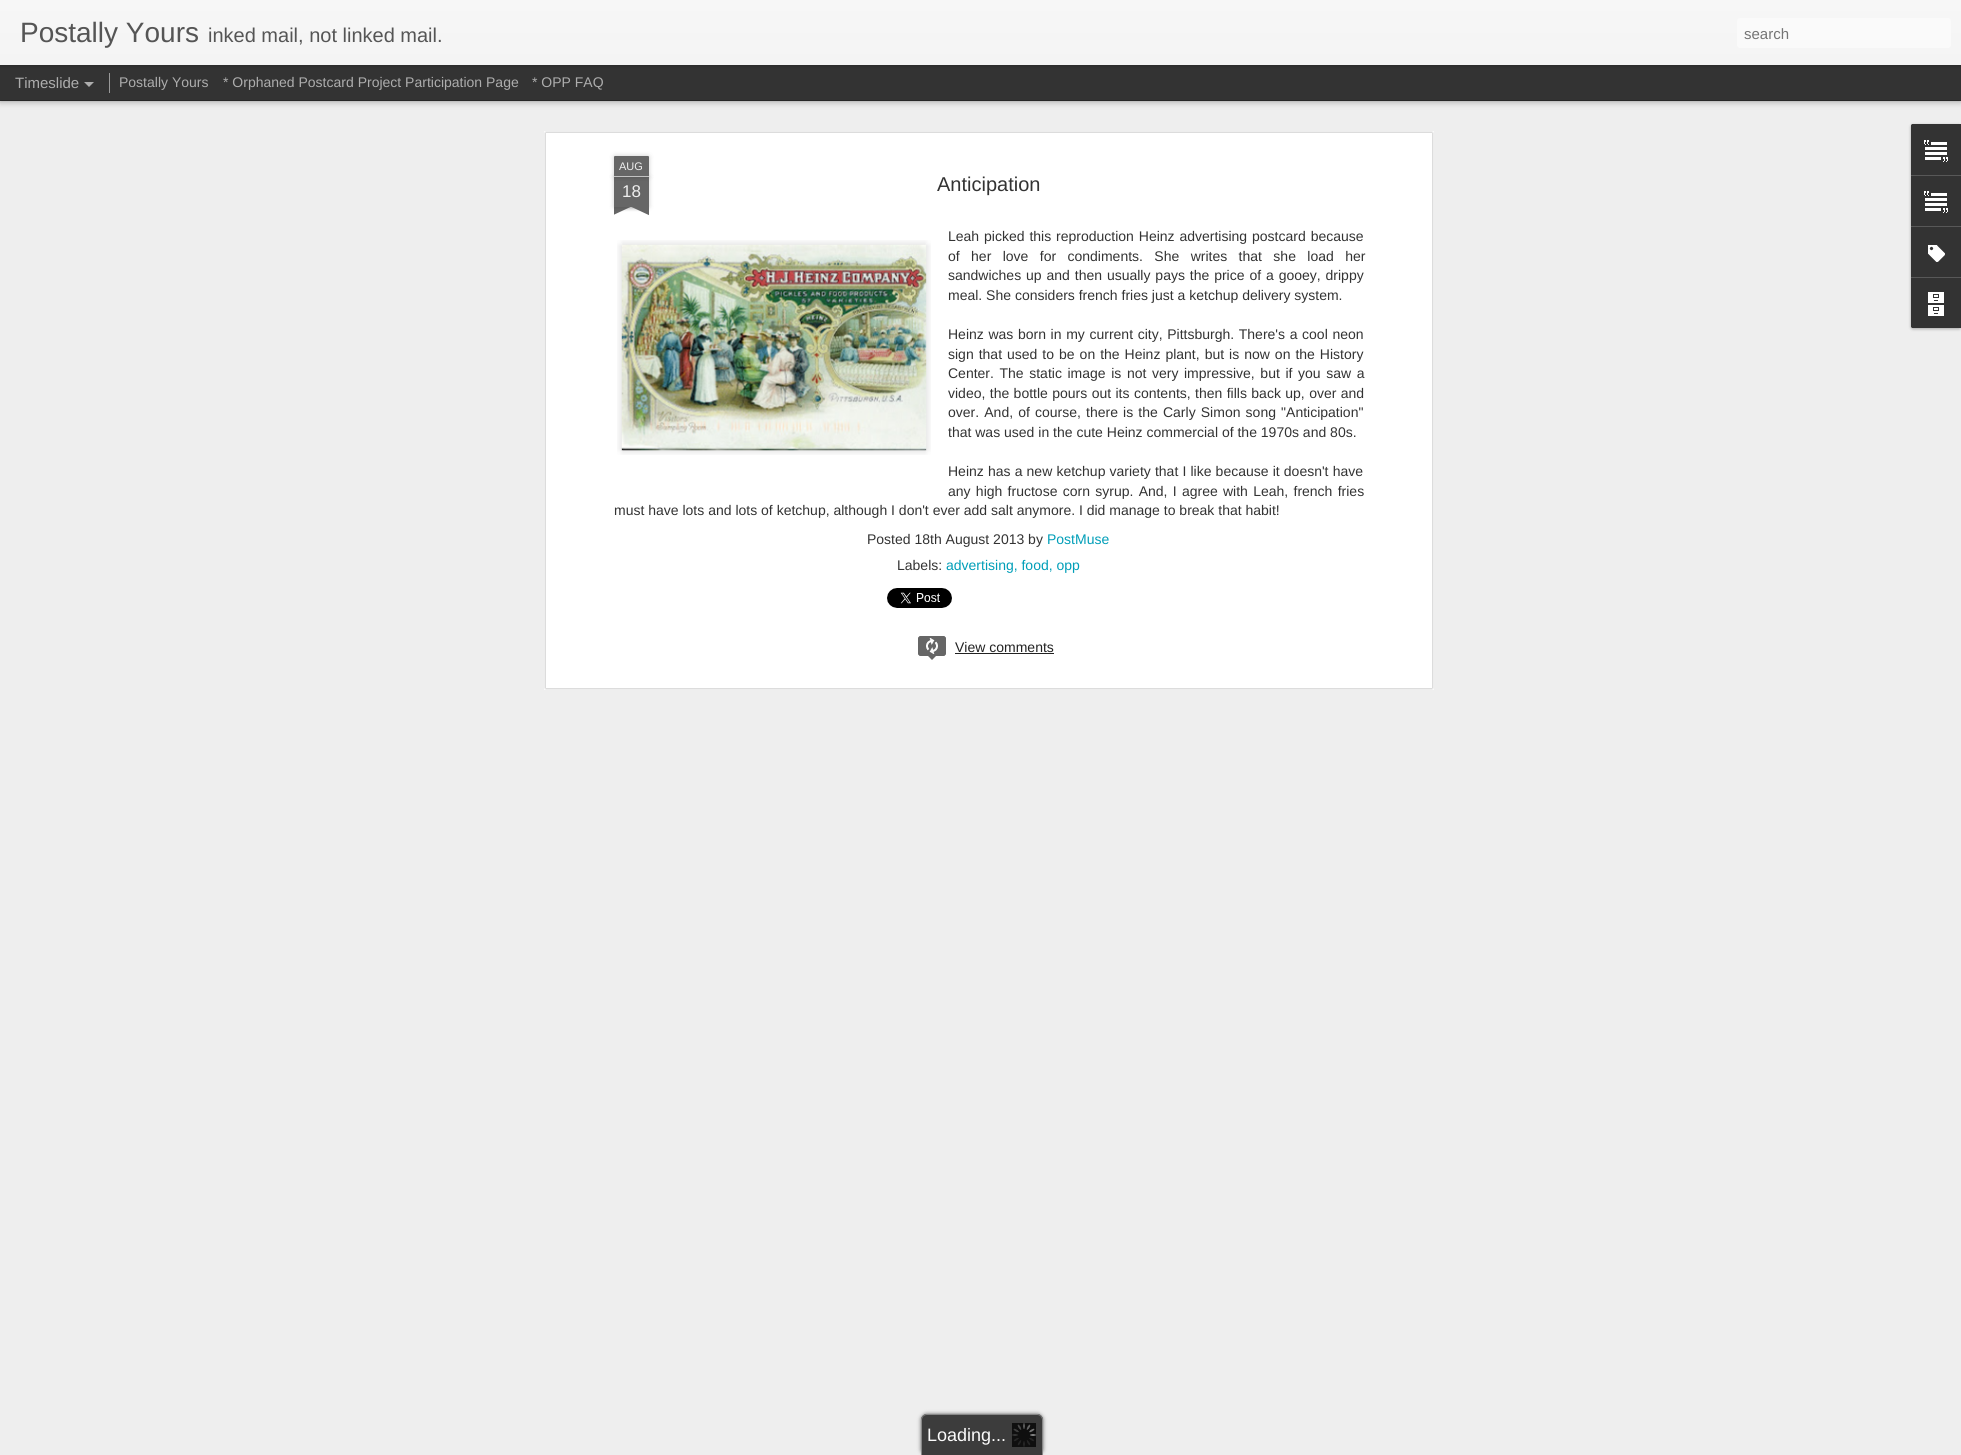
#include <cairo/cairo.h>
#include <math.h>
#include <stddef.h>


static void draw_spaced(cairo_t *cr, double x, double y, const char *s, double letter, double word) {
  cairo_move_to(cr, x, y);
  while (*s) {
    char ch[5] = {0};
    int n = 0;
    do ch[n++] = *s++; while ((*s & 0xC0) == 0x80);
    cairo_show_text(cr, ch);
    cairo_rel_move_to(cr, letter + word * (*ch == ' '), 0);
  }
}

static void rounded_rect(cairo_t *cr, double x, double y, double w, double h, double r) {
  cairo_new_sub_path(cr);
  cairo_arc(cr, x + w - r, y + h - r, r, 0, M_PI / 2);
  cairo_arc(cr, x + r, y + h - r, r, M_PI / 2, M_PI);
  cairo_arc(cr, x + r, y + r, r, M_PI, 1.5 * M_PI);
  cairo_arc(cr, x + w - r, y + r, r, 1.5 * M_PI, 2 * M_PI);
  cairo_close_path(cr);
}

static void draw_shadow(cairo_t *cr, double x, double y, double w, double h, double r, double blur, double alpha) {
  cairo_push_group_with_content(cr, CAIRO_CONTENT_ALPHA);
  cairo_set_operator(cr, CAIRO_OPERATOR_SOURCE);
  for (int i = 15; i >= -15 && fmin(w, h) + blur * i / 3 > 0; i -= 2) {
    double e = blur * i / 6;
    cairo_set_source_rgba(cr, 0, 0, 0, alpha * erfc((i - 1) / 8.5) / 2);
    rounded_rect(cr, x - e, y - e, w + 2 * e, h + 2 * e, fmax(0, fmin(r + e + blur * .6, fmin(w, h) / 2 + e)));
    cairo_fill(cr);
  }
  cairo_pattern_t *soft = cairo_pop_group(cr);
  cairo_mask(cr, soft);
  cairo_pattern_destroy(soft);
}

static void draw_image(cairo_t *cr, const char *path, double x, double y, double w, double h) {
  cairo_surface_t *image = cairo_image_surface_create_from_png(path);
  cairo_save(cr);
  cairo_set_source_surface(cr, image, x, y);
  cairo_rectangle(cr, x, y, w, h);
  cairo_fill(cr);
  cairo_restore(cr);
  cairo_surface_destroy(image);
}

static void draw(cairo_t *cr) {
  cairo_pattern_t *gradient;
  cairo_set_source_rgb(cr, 51 / 255.0, 51 / 255.0, 51 / 255.0);
  cairo_paint(cr);
  cairo_set_source_rgb(cr, 238 / 255.0, 238 / 255.0, 238 / 255.0);
  cairo_rectangle(cr, 0, 101, 1961, 1354);
  cairo_fill(cr);
  cairo_set_source_rgb(cr, 0, 0, 0);
  draw_shadow(cr, 0, 65, 1961, 35, 0, 4, 0.5);
  cairo_set_source_rgb(cr, 51 / 255.0, 51 / 255.0, 51 / 255.0);
  cairo_rectangle(cr, 0, 65, 1961, 35);
  cairo_fill(cr);
  cairo_set_source_rgb(cr, 153 / 255.0, 153 / 255.0, 153 / 255.0);
  cairo_rectangle(cr, 109, 73, 1, 20);
  cairo_fill(cr);
  cairo_set_source_rgb(cr, 0, 0, 0);
  draw_shadow(cr, 0, 0, 1961, 65, 0, 2.5, 0.3);
  gradient = cairo_pattern_create_linear(0, 0, 0, 65);
  cairo_pattern_add_color_stop_rgba(gradient, 0, 247 / 255.0, 247 / 255.0, 247 / 255.0, 1);
  cairo_pattern_add_color_stop_rgba(gradient, 1, 244 / 255.0, 244 / 255.0, 244 / 255.0, 1);
  cairo_set_source(cr, gradient);
  cairo_pattern_destroy(gradient);
  cairo_rectangle(cr, 0, 0, 1961, 65);
  cairo_fill(cr);
  cairo_set_source_rgb(cr, 250 / 255.0, 250 / 255.0, 250 / 255.0);
  rounded_rect(cr, 1737, 18, 214, 30, 3);
  cairo_fill(cr);
  cairo_set_source_rgb(cr, 173 / 255.0, 173 / 255.0, 173 / 255.0);
  cairo_new_path(cr);
  cairo_move_to(cr, 84, 82);
  cairo_line_to(cr, 94, 82);
  cairo_line_to(cr, 89, 87);
  cairo_close_path(cr);
  cairo_fill(cr);
  cairo_set_source_rgb(cr, 1, 1, 1);
  cairo_rectangle(cr, 544, 131, 890, 559);
  cairo_fill(cr);
  draw_image(cr, "images/1.png", 544, 131, 890, 559);
  cairo_set_source_rgb(cr, 0, 0, 0);
  draw_shadow(cr, 614, 177, 35, 30, 0, 2.5, 0.2);
  cairo_set_source_rgb(cr, 102 / 255.0, 102 / 255.0, 102 / 255.0);
  cairo_rectangle(cr, 614, 177, 35, 30);
  cairo_fill(cr);
  cairo_set_source_rgb(cr, 0, 0, 0);
  draw_shadow(cr, 614, 156, 35, 21, 1, 2.5, 0.2);
  cairo_set_source_rgb(cr, 102 / 255.0, 102 / 255.0, 102 / 255.0);
  cairo_new_path(cr);
  cairo_move_to(cr, 615, 156);
  cairo_line_to(cr, 648, 156);
  cairo_curve_to(cr, 648.5, 156, 649, 156.5, 649, 157);
  cairo_line_to(cr, 649, 177);
  cairo_line_to(cr, 614, 177);
  cairo_line_to(cr, 614, 157);
  cairo_curve_to(cr, 614, 156.5, 614.5, 156, 615, 156);
  cairo_close_path(cr);
  cairo_fill(cr);
  cairo_set_source_rgb(cr, 194 / 255.0, 194 / 255.0, 194 / 255.0);
  cairo_rectangle(cr, 614, 176, 35, 1);
  cairo_fill(cr);
  cairo_save(cr);
  cairo_rectangle(cr, 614, 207, 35, 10);
  cairo_clip(cr);
  cairo_set_source_rgb(cr, 0, 0, 0);
  draw_shadow(cr, 605, 197, 50, 10, 0, 2.5, 0.2);
  cairo_restore(cr);
  cairo_save(cr);
  cairo_rectangle(cr, 614, 207, 35, 10);
  cairo_clip(cr);
  cairo_set_source_rgb(cr, 102 / 255.0, 102 / 255.0, 102 / 255.0);
  cairo_new_path(cr);
  cairo_move_to(cr, 605, 208);
  cairo_line_to(cr, 650, 187);
  cairo_line_to(cr, 654, 196);
  cairo_line_to(cr, 609, 217);
  cairo_close_path(cr);
  cairo_fill(cr);
  cairo_restore(cr);
  cairo_save(cr);
  cairo_rectangle(cr, 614, 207, 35, 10);
  cairo_clip(cr);
  cairo_set_source_rgb(cr, 0, 0, 0);
  draw_shadow(cr, 608, 197, 50, 10, 0, 2.5, 0.2);
  cairo_restore(cr);
  cairo_save(cr);
  cairo_rectangle(cr, 614, 207, 35, 10);
  cairo_clip(cr);
  cairo_set_source_rgb(cr, 102 / 255.0, 102 / 255.0, 102 / 255.0);
  cairo_new_path(cr);
  cairo_move_to(cr, 612, 187);
  cairo_line_to(cr, 657, 208);
  cairo_line_to(cr, 653, 217);
  cairo_line_to(cr, 608, 196);
  cairo_close_path(cr);
  cairo_fill(cr);
  cairo_restore(cr);
  draw_image(cr, "images/2.png", 617, 240, 314, 215);
  draw_image(cr, "images/3.png", 621, 244, 306, 207);
  draw_image(cr, "images/4.png", 887, 588, 65, 20);
  cairo_set_source_rgb(cr, 102 / 255.0, 102 / 255.0, 102 / 255.0);
  rounded_rect(cr, 918, 636, 28, 20, 3);
  cairo_fill(cr);
  draw_image(cr, "images/5.png", 926, 638, 12, 16);
  rounded_rect(cr, 918.5, 636.5, 27, 19, 2.5);
  cairo_set_line_width(cr, 1);
  cairo_stroke(cr);
  cairo_new_path(cr);
  cairo_move_to(cr, 927, 655);
  cairo_line_to(cr, 937, 655);
  cairo_line_to(cr, 932, 660);
  cairo_close_path(cr);
  cairo_fill(cr);
  cairo_set_source_rgb(cr, 34 / 255.0, 34 / 255.0, 34 / 255.0);
  cairo_rectangle(cr, 955, 653, 99, 1);
  cairo_fill(cr);
  cairo_set_source_rgb(cr, 0, 0, 0);
  draw_shadow(cr, 1911, 125, 50, 204, 2, 1.5, 0.3);
  cairo_set_source_rgb(cr, 51 / 255.0, 51 / 255.0, 51 / 255.0);
  cairo_new_path(cr);
  cairo_move_to(cr, 1913, 124);
  cairo_line_to(cr, 1961, 124);
  cairo_line_to(cr, 1961, 328);
  cairo_line_to(cr, 1913, 328);
  cairo_curve_to(cr, 1912, 328, 1911, 327, 1911, 326);
  cairo_line_to(cr, 1911, 126);
  cairo_curve_to(cr, 1911, 125, 1912, 124, 1913, 124);
  cairo_close_path(cr);
  cairo_fill(cr);
  cairo_new_path(cr);
  cairo_move_to(cr, 1913, 124);
  cairo_line_to(cr, 1961, 124);
  cairo_line_to(cr, 1961, 175);
  cairo_line_to(cr, 1911, 175);
  cairo_line_to(cr, 1911, 126);
  cairo_curve_to(cr, 1911, 125, 1912, 124, 1913, 124);
  cairo_close_path(cr);
  cairo_fill(cr);
  draw_image(cr, "images/6.png", 1924, 140, 24, 22);
  cairo_set_source_rgb(cr, 88 / 255.0, 88 / 255.0, 88 / 255.0);
  cairo_rectangle(cr, 1911, 175, 50, 1);
  cairo_fill(cr);
  draw_image(cr, "images/6.png", 1924, 191, 24, 22);
  cairo_rectangle(cr, 1911, 226, 50, 1);
  cairo_fill(cr);
  draw_image(cr, "images/7.png", 1928, 245, 17, 17);
  cairo_set_source_rgb(cr, 51 / 255.0, 51 / 255.0, 51 / 255.0);
  cairo_new_path(cr);
  cairo_move_to(cr, 1911, 277);
  cairo_line_to(cr, 1961, 277);
  cairo_line_to(cr, 1961, 328);
  cairo_line_to(cr, 1913, 328);
  cairo_curve_to(cr, 1912, 328, 1911, 327, 1911, 326);
  cairo_close_path(cr);
  cairo_fill(cr);
  cairo_set_source_rgb(cr, 88 / 255.0, 88 / 255.0, 88 / 255.0);
  cairo_rectangle(cr, 1911, 277, 50, 1);
  cairo_fill(cr);
  draw_image(cr, "images/8.png", 1928, 292, 16, 24);
  cairo_set_source_rgb(cr, 98 / 255.0, 98 / 255.0, 98 / 255.0);
  draw_shadow(cr, 921, 1414, 122, 41, 6, 2, 1);
  cairo_set_source_rgb(cr, 60 / 255.0, 60 / 255.0, 60 / 255.0);
  cairo_new_path(cr);
  cairo_move_to(cr, 927, 1414);
  cairo_line_to(cr, 1037, 1414);
  cairo_curve_to(cr, 1040.5, 1414, 1043, 1416.5, 1043, 1420);
  cairo_line_to(cr, 1043, 1455);
  cairo_line_to(cr, 921, 1455);
  cairo_line_to(cr, 921, 1420);
  cairo_curve_to(cr, 921, 1416.5, 923.5, 1414, 927, 1414);
  cairo_close_path(cr);
  cairo_fill(cr);
  cairo_set_source_rgb(cr, 136 / 255.0, 136 / 255.0, 136 / 255.0);
  cairo_set_fill_rule(cr, CAIRO_FILL_RULE_EVEN_ODD);
  cairo_new_path(cr);
  cairo_move_to(cr, 927, 1414);
  cairo_line_to(cr, 1037, 1414);
  cairo_curve_to(cr, 1040, 1414, 1043, 1417, 1043, 1420);
  cairo_line_to(cr, 1043, 1455);
  cairo_line_to(cr, 921, 1455);
  cairo_line_to(cr, 921, 1420);
  cairo_curve_to(cr, 921, 1417, 924, 1414, 927, 1414);
  cairo_close_path(cr);
  cairo_move_to(cr, 927, 1415);
  cairo_line_to(cr, 1037, 1415);
  cairo_curve_to(cr, 1040, 1415, 1042, 1417, 1042, 1420);
  cairo_line_to(cr, 1042, 1455);
  cairo_line_to(cr, 922, 1455);
  cairo_line_to(cr, 922, 1420);
  cairo_curve_to(cr, 922, 1417, 924, 1415, 927, 1415);
  cairo_close_path(cr);
  cairo_fill(cr);
  draw_image(cr, "images/9.png", 1012, 1423, 24, 24);
  cairo_select_font_face(cr, "Liberation Sans", CAIRO_FONT_SLANT_NORMAL, CAIRO_FONT_WEIGHT_NORMAL);
  cairo_set_font_size(cr, 28);
  cairo_set_source_rgb(cr, 85 / 255.0, 85 / 255.0, 85 / 255.0);
  cairo_move_to(cr, 20, 42);
  cairo_show_text(cr, "Postally Yours");
  cairo_set_font_size(cr, 20);
  cairo_move_to(cr, 208, 42);
  cairo_show_text(cr, "inked mail, not linked mail.");
  cairo_set_font_size(cr, 15);
  cairo_set_source_rgb(cr, 117 / 255.0, 117 / 255.0, 117 / 255.0);
  cairo_move_to(cr, 1744, 39);
  cairo_show_text(cr, "search");
  cairo_set_source_rgb(cr, 173 / 255.0, 173 / 255.0, 173 / 255.0);
  cairo_move_to(cr, 15, 88);
  cairo_show_text(cr, "Timeslide");
  cairo_set_font_size(cr, 14);
  cairo_move_to(cr, 119, 87);
  cairo_show_text(cr, "Postally Yours");
  cairo_move_to(cr, 223, 87);
  cairo_show_text(cr, "* Orphaned Postcard Project Participation Page");
  cairo_move_to(cr, 532, 87);
  cairo_show_text(cr, "* OPP FAQ");
  cairo_set_font_size(cr, 11);
  cairo_set_source_rgb(cr, 238 / 255.0, 238 / 255.0, 238 / 255.0);
  cairo_move_to(cr, 619, 170);
  cairo_show_text(cr, "AUG");
  cairo_set_font_size(cr, 17);
  cairo_move_to(cr, 622, 197);
  cairo_show_text(cr, "18");
  cairo_set_font_size(cr, 20);
  cairo_set_source_rgb(cr, 51 / 255.0, 51 / 255.0, 51 / 255.0);
  cairo_move_to(cr, 937, 191);
  cairo_show_text(cr, "Anticipation");
  cairo_set_font_size(cr, 14);
  draw_spaced(cr, 948, 241, "Leah picked this reproduction Heinz advertising postcard because", 0, 1);
  draw_spaced(cr, 948, 261, "of her love for condiments. She writes that she load her", 0, 7.5);
  draw_spaced(cr, 948, 280, "sandwiches up and then usually pays the price of a gooey, drippy", 0, 1);
  cairo_move_to(cr, 948, 300);
  cairo_show_text(cr, "meal. She considers french fries just a ketchup delivery system.");
  draw_spaced(cr, 948, 339, "Heinz was born in my current city, Pittsburgh. There's a cool neon", 0, 0.75);
  draw_spaced(cr, 948, 359, "sign that used to be on the Heinz plant, but is now on the History", 0, 1.1);
  draw_spaced(cr, 948, 378, "Center. The static image is not very impressive, but if you saw a", 0, 1.7);
  draw_spaced(cr, 948, 398, "video, the bottle pours out its contents, then fills back up, over and", 0, 0.5);
  draw_spaced(cr, 948, 417, "over. And, of course, there is the Carly Simon song \"Anticipation\"", 0, 1.25);
  cairo_move_to(cr, 948, 437);
  cairo_show_text(cr, "that was used in the cute Heinz commercial of the 1970s and 80s.");
  draw_spaced(cr, 948, 476, "Heinz has a new ketchup variety that I like because it doesn't have", 0, 0.25);
  draw_spaced(cr, 948, 496, "any high fructose corn syrup. And, I agree with Leah, french fries", 0, 1.4);
  cairo_move_to(cr, 614, 515);
  cairo_show_text(cr, "must have lots and lots of ketchup, although I don't ever add salt anymore. I did manage to break that habit!");
  cairo_move_to(cr, 867, 544);
  cairo_show_text(cr, "Posted 18th August 2013 by");
  cairo_set_source_rgb(cr, 0, 158 / 255.0, 184 / 255.0);
  cairo_move_to(cr, 1047, 544);
  cairo_show_text(cr, "PostMuse");
  cairo_set_source_rgb(cr, 51 / 255.0, 51 / 255.0, 51 / 255.0);
  cairo_move_to(cr, 897, 570);
  cairo_show_text(cr, "Labels:");
  cairo_set_source_rgb(cr, 0, 158 / 255.0, 184 / 255.0);
  cairo_move_to(cr, 946, 570);
  cairo_show_text(cr, "advertising, food, opp");
  cairo_set_source_rgb(cr, 34 / 255.0, 34 / 255.0, 34 / 255.0);
  cairo_move_to(cr, 955, 652);
  cairo_show_text(cr, "View comments");
  cairo_set_font_size(cr, 18);
  cairo_set_source_rgb(cr, 251 / 255.0, 251 / 255.0, 251 / 255.0);
  cairo_move_to(cr, 927, 1441);
  cairo_show_text(cr, "Loading...");
}

int main(void) {
  cairo_surface_t *surface = cairo_image_surface_create(CAIRO_FORMAT_RGB24, 1961, 1455);
  cairo_t *cr = cairo_create(surface);
  cairo_font_options_t *options = cairo_font_options_create();
  cairo_font_options_set_hint_metrics(options, CAIRO_HINT_METRICS_OFF);
  cairo_font_options_set_hint_style(options, CAIRO_HINT_STYLE_NONE);
  cairo_set_font_options(cr, options);
  cairo_set_miter_limit(cr, 4);
  draw(cr);
  cairo_surface_write_to_png(surface, "out.png");
  cairo_font_options_destroy(options);
  cairo_destroy(cr);
  cairo_surface_destroy(surface);
  return 0;
}
